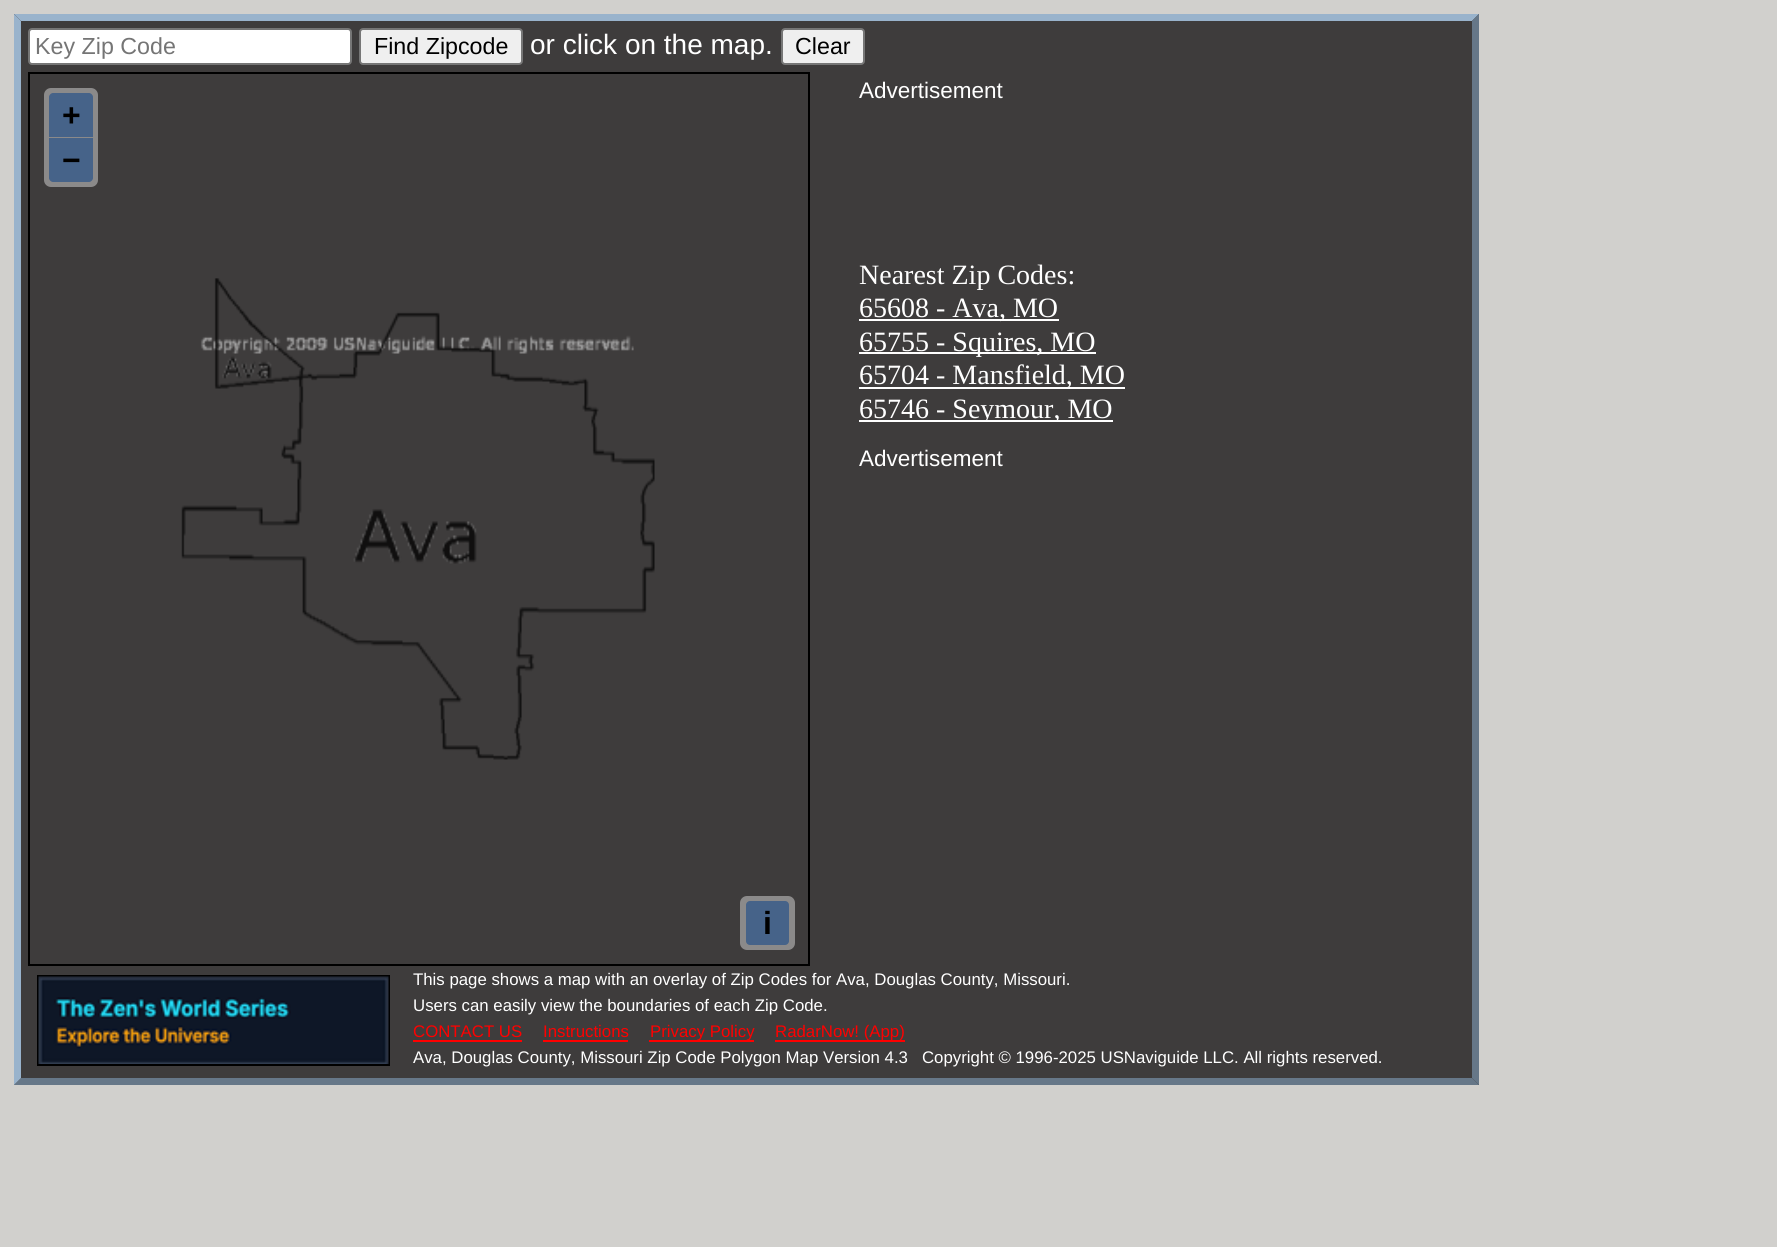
#include <cairo/cairo.h>
#include <math.h>
#include <stddef.h>


static void rounded_rect(cairo_t *cr, double x, double y, double w, double h, double r) {
  cairo_new_sub_path(cr);
  cairo_arc(cr, x + w - r, y + h - r, r, 0, M_PI / 2);
  cairo_arc(cr, x + r, y + h - r, r, M_PI / 2, M_PI);
  cairo_arc(cr, x + r, y + r, r, M_PI, 1.5 * M_PI);
  cairo_arc(cr, x + w - r, y + r, r, 1.5 * M_PI, 2 * M_PI);
  cairo_close_path(cr);
}

static void draw_image(cairo_t *cr, const char *path, double x, double y, double w, double h) {
  cairo_surface_t *image = cairo_image_surface_create_from_png(path);
  cairo_save(cr);
  cairo_set_source_surface(cr, image, x, y);
  cairo_rectangle(cr, x, y, w, h);
  cairo_fill(cr);
  cairo_restore(cr);
  cairo_surface_destroy(image);
}

static void draw(cairo_t *cr) {
  cairo_set_source_rgb(cr, 209 / 255.0, 208 / 255.0, 205 / 255.0);
  cairo_paint(cr);
  cairo_set_source_rgb(cr, 62 / 255.0, 60 / 255.0, 60 / 255.0);
  cairo_rectangle(cr, 14, 14, 1465, 1071);
  cairo_fill(cr);
  cairo_set_source_rgb(cr, 153 / 255.0, 179 / 255.0, 204 / 255.0);
  cairo_new_path(cr);
  cairo_move_to(cr, 14, 14);
  cairo_line_to(cr, 1479, 14);
  cairo_line_to(cr, 1472, 21);
  cairo_line_to(cr, 21, 21);
  cairo_close_path(cr);
  cairo_fill(cr);
  cairo_set_source_rgb(cr, 102 / 255.0, 119 / 255.0, 136 / 255.0);
  cairo_new_path(cr);
  cairo_move_to(cr, 1479, 14);
  cairo_line_to(cr, 1479, 1085);
  cairo_line_to(cr, 1472, 1078);
  cairo_line_to(cr, 1472, 21);
  cairo_close_path(cr);
  cairo_fill(cr);
  cairo_new_path(cr);
  cairo_move_to(cr, 1479, 1085);
  cairo_line_to(cr, 14, 1085);
  cairo_line_to(cr, 21, 1078);
  cairo_line_to(cr, 1472, 1078);
  cairo_close_path(cr);
  cairo_fill(cr);
  cairo_set_source_rgb(cr, 153 / 255.0, 179 / 255.0, 204 / 255.0);
  cairo_new_path(cr);
  cairo_move_to(cr, 14, 1085);
  cairo_line_to(cr, 14, 14);
  cairo_line_to(cr, 21, 21);
  cairo_line_to(cr, 21, 1078);
  cairo_close_path(cr);
  cairo_fill(cr);
  cairo_set_source_rgb(cr, 1, 1, 1);
  rounded_rect(cr, 29, 29, 322, 35, 3);
  cairo_fill_preserve(cr);
  cairo_set_source_rgb(cr, 118 / 255.0, 118 / 255.0, 118 / 255.0);
  cairo_stroke(cr);
  cairo_set_source_rgb(cr, 239 / 255.0, 239 / 255.0, 239 / 255.0);
  rounded_rect(cr, 360, 29, 162, 35, 3);
  cairo_fill_preserve(cr);
  cairo_set_source_rgb(cr, 118 / 255.0, 118 / 255.0, 118 / 255.0);
  cairo_stroke(cr);
  cairo_set_source_rgb(cr, 239 / 255.0, 239 / 255.0, 239 / 255.0);
  rounded_rect(cr, 782, 29, 82, 35, 3);
  cairo_fill_preserve(cr);
  cairo_set_source_rgb(cr, 118 / 255.0, 118 / 255.0, 118 / 255.0);
  cairo_stroke(cr);
  cairo_rectangle(cr, 29, 73, 780, 892);
  cairo_set_source_rgb(cr, 0, 0, 0);
  cairo_stroke(cr);
  cairo_set_source_rgb(cr, 139 / 255.0, 138 / 255.0, 138 / 255.0);
  rounded_rect(cr, 44, 88, 54, 99, 7);
  cairo_fill(cr);
  cairo_set_source_rgb(cr, 70 / 255.0, 99 / 255.0, 137 / 255.0);
  cairo_new_path(cr);
  cairo_move_to(cr, 53, 93);
  cairo_line_to(cr, 89, 93);
  cairo_curve_to(cr, 91, 93, 93, 95, 93, 97);
  cairo_line_to(cr, 93, 137);
  cairo_line_to(cr, 49, 137);
  cairo_line_to(cr, 49, 97);
  cairo_curve_to(cr, 49, 95, 51, 93, 53, 93);
  cairo_close_path(cr);
  cairo_fill(cr);
  cairo_new_path(cr);
  cairo_move_to(cr, 49, 138);
  cairo_line_to(cr, 93, 138);
  cairo_line_to(cr, 93, 178);
  cairo_curve_to(cr, 93, 180, 91, 182, 89, 182);
  cairo_line_to(cr, 53, 182);
  cairo_curve_to(cr, 51, 182, 49, 180, 49, 178);
  cairo_close_path(cr);
  cairo_fill(cr);
  cairo_set_source_rgb(cr, 139 / 255.0, 138 / 255.0, 138 / 255.0);
  rounded_rect(cr, 740, 896, 55, 54, 7);
  cairo_fill(cr);
  cairo_set_source_rgb(cr, 70 / 255.0, 99 / 255.0, 137 / 255.0);
  rounded_rect(cr, 746, 901, 43, 44, 4);
  cairo_fill(cr);
  draw_image(cr, "images/1.png", 181, 278, 474, 482);
  cairo_set_source_rgb(cr, 1, 1, 1);
  cairo_rectangle(cr, 859, 319, 200, 2);
  cairo_fill(cr);
  cairo_rectangle(cr, 859, 352, 237, 2);
  cairo_fill(cr);
  cairo_rectangle(cr, 859, 387, 266, 2);
  cairo_fill(cr);
  cairo_rectangle(cr, 859, 420, 254, 2);
  cairo_fill(cr);
  cairo_rectangle(cr, 38, 976, 351, 89);
  cairo_set_source_rgb(cr, 0, 0, 0);
  cairo_stroke(cr);
  draw_image(cr, "images/2.png", 38, 976, 351, 88);
  cairo_set_source_rgb(cr, 1, 0, 0);
  cairo_rectangle(cr, 413, 1040, 109, 2);
  cairo_fill(cr);
  cairo_rectangle(cr, 543, 1040, 85, 2);
  cairo_fill(cr);
  cairo_rectangle(cr, 649, 1040, 105, 2);
  cairo_fill(cr);
  cairo_rectangle(cr, 775, 1040, 130, 2);
  cairo_fill(cr);
  cairo_select_font_face(cr, "Liberation Sans", CAIRO_FONT_SLANT_NORMAL, CAIRO_FONT_WEIGHT_NORMAL);
  cairo_set_font_size(cr, 23.25);
  cairo_set_source_rgb(cr, 117 / 255.0, 117 / 255.0, 117 / 255.0);
  cairo_move_to(cr, 35, 54);
  cairo_show_text(cr, "Key Zip Code");
  cairo_set_source_rgb(cr, 0, 0, 0);
  cairo_move_to(cr, 374, 54);
  cairo_show_text(cr, "Find Zipcode");
  cairo_set_font_size(cr, 28);
  cairo_set_source_rgb(cr, 1, 1, 1);
  cairo_move_to(cr, 530, 54);
  cairo_show_text(cr, "or click on the map.");
  cairo_set_font_size(cr, 23.25);
  cairo_set_source_rgb(cr, 0, 0, 0);
  cairo_move_to(cr, 795, 54);
  cairo_show_text(cr, "Clear");
  cairo_select_font_face(cr, "Liberation Sans", CAIRO_FONT_SLANT_NORMAL, CAIRO_FONT_WEIGHT_BOLD);
  cairo_set_font_size(cr, 32);
  cairo_move_to(cr, 62, 126);
  cairo_show_text(cr, "+");
  cairo_move_to(cr, 62, 171);
  cairo_show_text(cr, "−");
  cairo_move_to(cr, 763, 934);
  cairo_show_text(cr, "i");
  cairo_select_font_face(cr, "Liberation Sans", CAIRO_FONT_SLANT_NORMAL, CAIRO_FONT_WEIGHT_NORMAL);
  cairo_set_font_size(cr, 22.5);
  cairo_set_source_rgb(cr, 1, 1, 1);
  cairo_move_to(cr, 859, 98);
  cairo_show_text(cr, "Advertisement");
  cairo_select_font_face(cr, "Liberation Serif", CAIRO_FONT_SLANT_NORMAL, CAIRO_FONT_WEIGHT_NORMAL);
  cairo_set_font_size(cr, 28);
  cairo_move_to(cr, 859, 284);
  cairo_show_text(cr, "Nearest Zip Codes:");
  cairo_move_to(cr, 859, 317);
  cairo_show_text(cr, "65608 - Ava, MO");
  cairo_move_to(cr, 859, 351);
  cairo_show_text(cr, "65755 - Squires, MO");
  cairo_move_to(cr, 859, 384);
  cairo_show_text(cr, "65704 - Mansfield, MO");
  cairo_save(cr);
  cairo_rectangle(cr, 859, 229, 606, 193);
  cairo_clip(cr);
  cairo_move_to(cr, 859, 418);
  cairo_show_text(cr, "65746 - Seymour, MO");
  cairo_restore(cr);
  cairo_select_font_face(cr, "Liberation Sans", CAIRO_FONT_SLANT_NORMAL, CAIRO_FONT_WEIGHT_NORMAL);
  cairo_set_font_size(cr, 22.5);
  cairo_move_to(cr, 859, 466);
  cairo_show_text(cr, "Advertisement");
  cairo_set_font_size(cr, 16.8);
  cairo_move_to(cr, 413, 985);
  cairo_show_text(cr, "This page shows a map with an overlay of Zip Codes for Ava, Douglas County, Missouri.");
  cairo_move_to(cr, 413, 1011);
  cairo_show_text(cr, "Users can easily view the boundaries of each Zip Code.");
  cairo_set_source_rgb(cr, 1, 0, 0);
  cairo_move_to(cr, 413, 1037);
  cairo_show_text(cr, "CONTACT US");
  cairo_move_to(cr, 543, 1037);
  cairo_show_text(cr, "Instructions");
  cairo_move_to(cr, 650, 1037);
  cairo_show_text(cr, "Privacy Policy");
  cairo_move_to(cr, 775, 1037);
  cairo_show_text(cr, "RadarNow! (App)");
  cairo_set_source_rgb(cr, 1, 1, 1);
  cairo_move_to(cr, 413, 1063);
  cairo_show_text(cr, "Ava, Douglas County, Missouri Zip Code Polygon Map Version 4.3   Copyright © 1996-2025 USNaviguide LLC. All rights reserved.");
}

int main(void) {
  cairo_surface_t *surface = cairo_image_surface_create(CAIRO_FORMAT_RGB24, 1777, 1247);
  cairo_t *cr = cairo_create(surface);
  cairo_font_options_t *options = cairo_font_options_create();
  cairo_font_options_set_hint_metrics(options, CAIRO_HINT_METRICS_OFF);
  cairo_font_options_set_hint_style(options, CAIRO_HINT_STYLE_NONE);
  cairo_set_font_options(cr, options);
  cairo_set_miter_limit(cr, 4);
  draw(cr);
  cairo_surface_write_to_png(surface, "out.png");
  cairo_font_options_destroy(options);
  cairo_destroy(cr);
  cairo_surface_destroy(surface);
  return 0;
}
